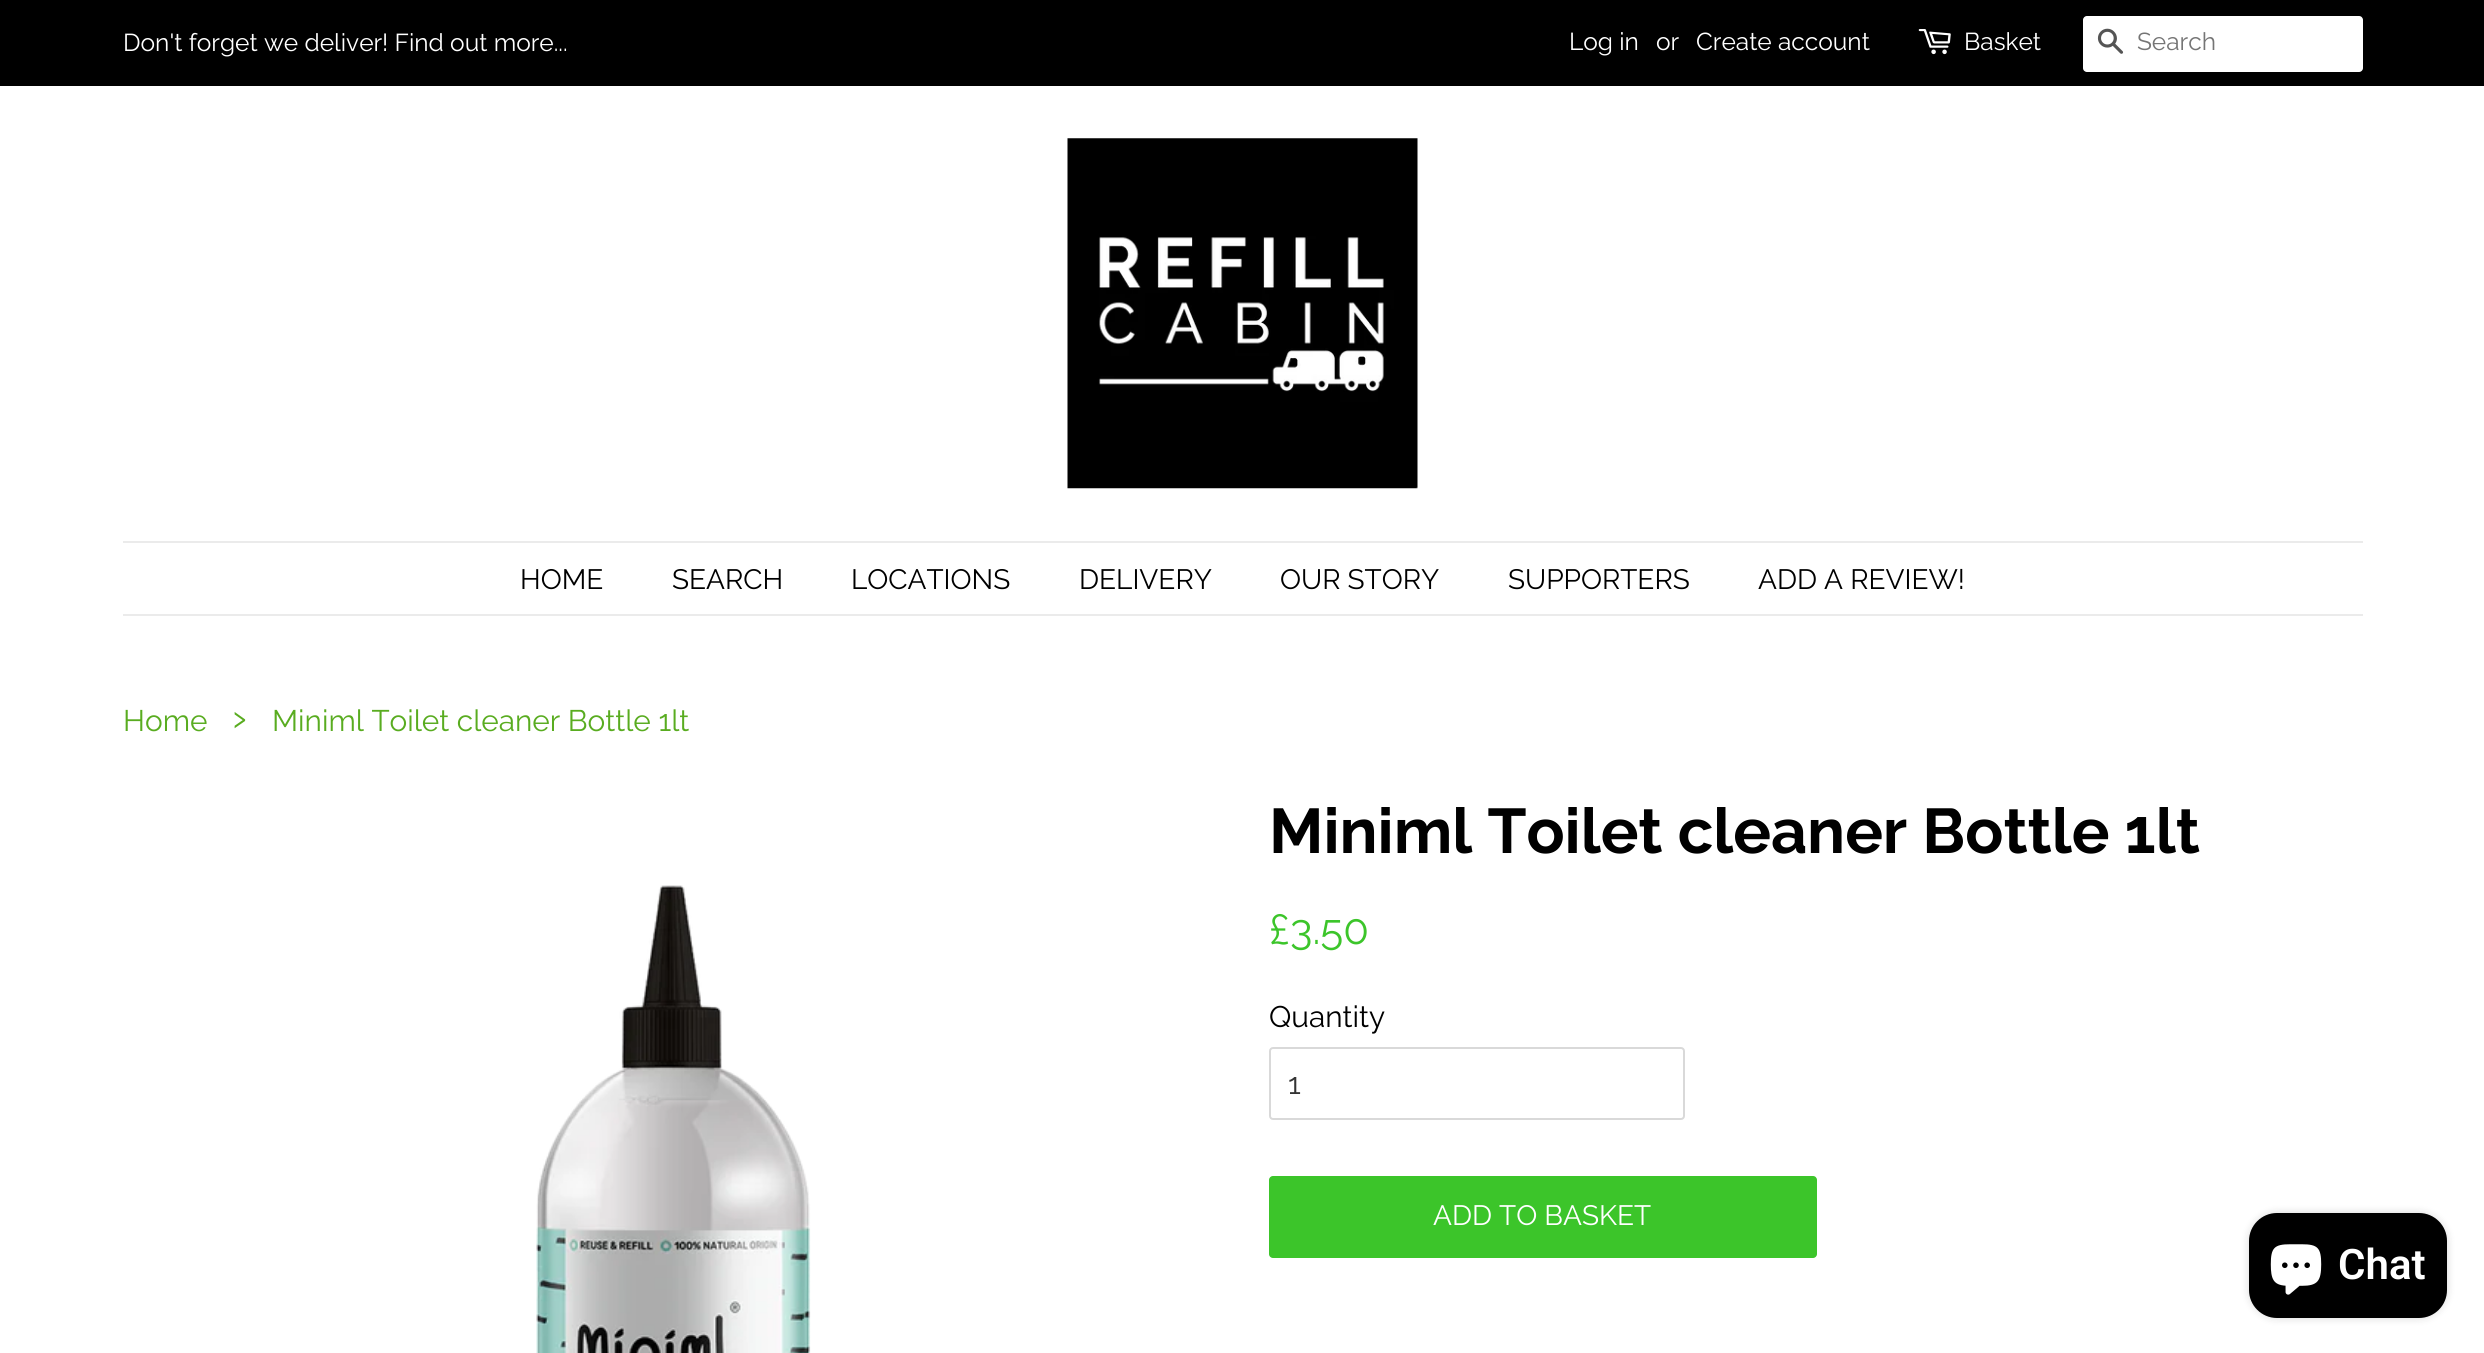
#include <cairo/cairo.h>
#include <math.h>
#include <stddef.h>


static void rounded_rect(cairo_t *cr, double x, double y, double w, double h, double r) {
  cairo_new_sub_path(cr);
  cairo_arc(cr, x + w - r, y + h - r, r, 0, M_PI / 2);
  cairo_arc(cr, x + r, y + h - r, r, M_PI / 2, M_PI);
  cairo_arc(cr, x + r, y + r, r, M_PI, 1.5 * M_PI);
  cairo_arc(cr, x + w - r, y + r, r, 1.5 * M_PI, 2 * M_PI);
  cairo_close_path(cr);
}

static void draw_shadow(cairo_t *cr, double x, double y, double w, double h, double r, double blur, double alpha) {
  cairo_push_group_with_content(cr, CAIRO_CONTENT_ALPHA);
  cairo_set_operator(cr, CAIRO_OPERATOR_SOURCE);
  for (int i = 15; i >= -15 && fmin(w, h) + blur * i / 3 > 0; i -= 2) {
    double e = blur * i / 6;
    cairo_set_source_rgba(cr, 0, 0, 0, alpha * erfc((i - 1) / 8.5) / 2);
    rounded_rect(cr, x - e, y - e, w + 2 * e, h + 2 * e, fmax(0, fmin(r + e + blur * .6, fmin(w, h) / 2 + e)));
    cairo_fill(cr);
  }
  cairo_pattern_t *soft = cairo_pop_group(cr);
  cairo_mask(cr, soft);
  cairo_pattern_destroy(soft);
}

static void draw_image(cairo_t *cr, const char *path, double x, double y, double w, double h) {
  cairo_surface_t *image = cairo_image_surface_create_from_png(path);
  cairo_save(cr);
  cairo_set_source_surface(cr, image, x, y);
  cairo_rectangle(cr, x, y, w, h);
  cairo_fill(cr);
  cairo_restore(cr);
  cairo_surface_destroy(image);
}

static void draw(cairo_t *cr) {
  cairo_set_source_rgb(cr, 1, 1, 1);
  cairo_paint(cr);
  cairo_set_source_rgb(cr, 0, 0, 0);
  cairo_rectangle(cr, 0, 0, 2484, 86);
  cairo_fill(cr);
  draw_image(cr, "images/1.png", 1918, 29, 33, 26);
  cairo_set_source_rgb(cr, 1, 1, 1);
  rounded_rect(cr, 2083, 16, 280, 56, 4);
  cairo_fill(cr);
  draw_image(cr, "images/2.png", 2097, 28, 27, 26);
  draw_image(cr, "images/3.png", 1067, 138, 351, 351);
  cairo_set_source_rgb(cr, 235 / 255.0, 235 / 255.0, 235 / 255.0);
  cairo_rectangle(cr, 123, 541, 2240, 2);
  cairo_fill(cr);
  cairo_rectangle(cr, 123, 614, 2240, 2);
  cairo_fill(cr);
  draw_image(cr, "images/4.png", 536, 885, 275, 468);
  rounded_rect(cr, 1270, 1048, 414, 71, 3);
  cairo_set_source_rgb(cr, 217 / 255.0, 217 / 255.0, 217 / 255.0);
  cairo_stroke(cr);
  cairo_set_source_rgb(cr, 60 / 255.0, 197 / 255.0, 42 / 255.0);
  rounded_rect(cr, 1269, 1176, 548, 82, 4);
  cairo_fill(cr);
  cairo_set_source_rgb(cr, 0, 0, 0);
  draw_shadow(cr, 2249, 1213, 198, 105, 28, 4.5, 0.15);
  cairo_set_source_rgb(cr, 0, 0, 0);
  rounded_rect(cr, 2249, 1213, 198, 105, 28);
  cairo_fill(cr);
  draw_image(cr, "images/5.png", 2270, 1244, 52, 51);
  cairo_select_font_face(cr, "Raleway", CAIRO_FONT_SLANT_NORMAL, CAIRO_FONT_WEIGHT_NORMAL);
  cairo_set_font_size(cr, 24.5);
  cairo_set_source_rgb(cr, 1, 1, 1);
  cairo_move_to(cr, 123, 51);
  cairo_show_text(cr, "Don't forget we deliver! Find out more...");
  cairo_move_to(cr, 1569, 50);
  cairo_show_text(cr, "Log in");
  cairo_move_to(cr, 1656, 50);
  cairo_show_text(cr, "or");
  cairo_move_to(cr, 1696, 50);
  cairo_show_text(cr, "Create account");
  cairo_move_to(cr, 1964, 50);
  cairo_show_text(cr, "Basket");
  cairo_set_source_rgb(cr, 117 / 255.0, 117 / 255.0, 117 / 255.0);
  cairo_move_to(cr, 2137, 50);
  cairo_show_text(cr, "Search");
  cairo_set_font_size(cr, 28);
  cairo_set_source_rgb(cr, 0, 0, 0);
  cairo_move_to(cr, 520, 589);
  cairo_show_text(cr, "HOME");
  cairo_move_to(cr, 672, 589);
  cairo_show_text(cr, "SEARCH");
  cairo_move_to(cr, 851, 589);
  cairo_show_text(cr, "LOCATIONS");
  cairo_move_to(cr, 1079, 589);
  cairo_show_text(cr, "DELIVERY");
  cairo_move_to(cr, 1280, 589);
  cairo_show_text(cr, "OUR STORY");
  cairo_move_to(cr, 1508, 589);
  cairo_show_text(cr, "SUPPORTERS");
  cairo_move_to(cr, 1758, 589);
  cairo_show_text(cr, "ADD A REVIEW!");
  cairo_set_font_size(cr, 29.75);
  cairo_set_source_rgb(cr, 89 / 255.0, 172 / 255.0, 32 / 255.0);
  cairo_move_to(cr, 123, 731);
  cairo_show_text(cr, "Home");
  cairo_set_font_size(cr, 42);
  cairo_move_to(cr, 232, 731);
  cairo_show_text(cr, "›");
  cairo_set_font_size(cr, 29.75);
  cairo_move_to(cr, 272, 731);
  cairo_show_text(cr, "Miniml Toilet cleaner Bottle 1lt");
  cairo_select_font_face(cr, "Raleway", CAIRO_FONT_SLANT_NORMAL, CAIRO_FONT_WEIGHT_BOLD);
  cairo_set_font_size(cr, 63);
  cairo_set_source_rgb(cr, 0, 0, 0);
  cairo_move_to(cr, 1269, 853);
  cairo_show_text(cr, "Miniml Toilet cleaner Bottle 1lt");
  cairo_select_font_face(cr, "Raleway", CAIRO_FONT_SLANT_NORMAL, CAIRO_FONT_WEIGHT_NORMAL);
  cairo_set_font_size(cr, 42);
  cairo_set_source_rgb(cr, 60 / 255.0, 197 / 255.0, 42 / 255.0);
  cairo_move_to(cr, 1269, 944);
  cairo_show_text(cr, "£3.50");
  cairo_set_font_size(cr, 29.75);
  cairo_set_source_rgb(cr, 0, 0, 0);
  cairo_move_to(cr, 1269, 1027);
  cairo_show_text(cr, "Quantity");
  cairo_set_source_rgb(cr, 51 / 255.0, 51 / 255.0, 51 / 255.0);
  cairo_move_to(cr, 1288, 1094);
  cairo_show_text(cr, "1");
  cairo_set_font_size(cr, 28);
  cairo_set_source_rgb(cr, 1, 1, 1);
  cairo_move_to(cr, 1433, 1225);
  cairo_show_text(cr, "ADD TO BASKET");
  cairo_select_font_face(cr, "Roboto SemiBold", CAIRO_FONT_SLANT_NORMAL, CAIRO_FONT_WEIGHT_NORMAL);
  cairo_set_font_size(cr, 42);
  cairo_move_to(cr, 2338, 1279);
  cairo_show_text(cr, "Chat");
}

int main(void) {
  cairo_surface_t *surface = cairo_image_surface_create(CAIRO_FORMAT_RGB24, 2484, 1353);
  cairo_t *cr = cairo_create(surface);
  cairo_font_options_t *options = cairo_font_options_create();
  cairo_font_options_set_hint_metrics(options, CAIRO_HINT_METRICS_OFF);
  cairo_font_options_set_hint_style(options, CAIRO_HINT_STYLE_NONE);
  cairo_set_font_options(cr, options);
  cairo_set_miter_limit(cr, 4);
  draw(cr);
  cairo_surface_write_to_png(surface, "out.png");
  cairo_font_options_destroy(options);
  cairo_destroy(cr);
  cairo_surface_destroy(surface);
  return 0;
}
